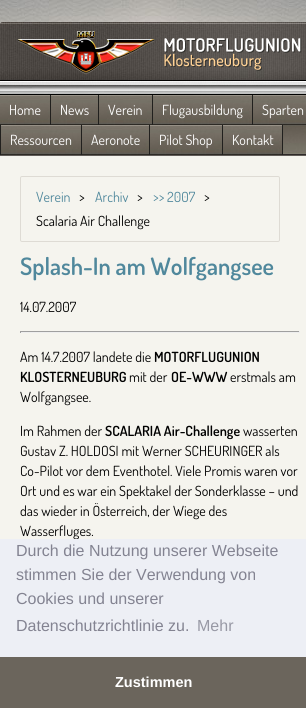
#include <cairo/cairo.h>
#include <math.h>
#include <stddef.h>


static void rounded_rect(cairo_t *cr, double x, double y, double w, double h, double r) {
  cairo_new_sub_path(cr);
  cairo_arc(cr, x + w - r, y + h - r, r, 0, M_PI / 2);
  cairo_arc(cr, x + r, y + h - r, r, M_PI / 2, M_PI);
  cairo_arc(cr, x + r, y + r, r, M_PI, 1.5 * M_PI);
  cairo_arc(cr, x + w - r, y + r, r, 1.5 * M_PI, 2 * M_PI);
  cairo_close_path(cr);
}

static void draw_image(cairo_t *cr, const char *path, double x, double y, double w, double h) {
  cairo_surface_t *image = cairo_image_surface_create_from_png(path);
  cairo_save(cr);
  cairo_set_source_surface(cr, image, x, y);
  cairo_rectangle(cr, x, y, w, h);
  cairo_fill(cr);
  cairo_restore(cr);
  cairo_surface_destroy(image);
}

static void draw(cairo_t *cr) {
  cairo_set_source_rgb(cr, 1, 1, 1);
  cairo_paint(cr);
  draw_image(cr, "images/1.png", 0, 0, 306, 25);
  cairo_set_source_rgb(cr, 96 / 255.0, 91 / 255.0, 87 / 255.0);
  cairo_new_path(cr);
  cairo_move_to(cr, 3, 22);
  cairo_line_to(cr, 306, 22);
  cairo_curve_to(cr, 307.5, 22, 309, 23.5, 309, 25);
  cairo_line_to(cr, 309, 156);
  cairo_line_to(cr, 0, 156);
  cairo_line_to(cr, 0, 25);
  cairo_curve_to(cr, 0, 23.5, 1.5, 22, 3, 22);
  cairo_close_path(cr);
  cairo_fill(cr);
  draw_image(cr, "images/2.png", 0, 22, 306, 73);
  draw_image(cr, "images/3.png", 17, 31, 285, 44);
  draw_image(cr, "images/4.png", 283, 125, 23, 30);
  draw_image(cr, "images/5.png", 0, 95, 50, 30);
  draw_image(cr, "images/6.png", 51, 95, 47, 30);
  cairo_set_source_rgb(cr, 33 / 255.0, 32 / 255.0, 30 / 255.0);
  cairo_rectangle(cr, 50, 95, 1, 30);
  cairo_fill(cr);
  draw_image(cr, "images/7.png", 99, 95, 53, 30);
  cairo_rectangle(cr, 98, 95, 1, 30);
  cairo_fill(cr);
  draw_image(cr, "images/8.png", 153, 95, 99, 30);
  cairo_rectangle(cr, 152, 95, 1, 30);
  cairo_fill(cr);
  draw_image(cr, "images/7.png", 253, 95, 53, 30);
  cairo_rectangle(cr, 252, 95, 1, 30);
  cairo_fill(cr);
  draw_image(cr, "images/9.png", 1, 125, 80, 30);
  cairo_rectangle(cr, 0, 125, 1, 30);
  cairo_fill(cr);
  draw_image(cr, "images/10.png", 82, 125, 67, 30);
  cairo_rectangle(cr, 81, 125, 1, 30);
  cairo_fill(cr);
  draw_image(cr, "images/11.png", 150, 125, 72, 30);
  cairo_rectangle(cr, 149, 125, 1, 30);
  cairo_fill(cr);
  cairo_rectangle(cr, 282, 125, 1, 30);
  cairo_fill(cr);
  draw_image(cr, "images/12.png", 223, 125, 59, 30);
  cairo_rectangle(cr, 222, 125, 1, 30);
  cairo_fill(cr);
  cairo_set_source_rgb(cr, 245 / 255.0, 244 / 255.0, 238 / 255.0);
  cairo_rectangle(cr, 0, 156, 306, 383);
  cairo_fill(cr);
  rounded_rect(cr, 20.5, 176.5, 259, 65, 1.5);
  cairo_set_source_rgb(cr, 222 / 255.0, 219 / 255.0, 212 / 255.0);
  cairo_set_line_width(cr, 1);
  cairo_stroke(cr);
  cairo_set_source_rgb(cr, 159 / 255.0, 159 / 255.0, 159 / 255.0);
  cairo_rectangle(cr, 20, 331, 280, 1);
  cairo_fill(cr);
  cairo_set_source_rgb(cr, 238 / 255.0, 238 / 255.0, 238 / 255.0);
  cairo_rectangle(cr, 299, 331, 1, 2);
  cairo_fill(cr);
  cairo_rectangle(cr, 20, 332, 280, 1);
  cairo_fill(cr);
  cairo_set_source_rgb(cr, 159 / 255.0, 159 / 255.0, 159 / 255.0);
  cairo_rectangle(cr, 20, 331, 1, 2);
  cairo_fill(cr);
  cairo_set_source_rgb(cr, 107 / 255.0, 101 / 255.0, 92 / 255.0);
  cairo_rectangle(cr, 0, 657, 306, 51);
  cairo_fill(cr);
  cairo_select_font_face(cr, "Dosis", CAIRO_FONT_SLANT_NORMAL, CAIRO_FONT_WEIGHT_NORMAL);
  cairo_set_font_size(cr, 14);
  cairo_set_source_rgb(cr, 1, 1, 1);
  cairo_move_to(cr, 9, 115);
  cairo_show_text(cr, "Home");
  cairo_move_to(cr, 60, 115);
  cairo_show_text(cr, "News");
  cairo_move_to(cr, 108, 115);
  cairo_show_text(cr, "Verein");
  cairo_move_to(cr, 162, 115);
  cairo_show_text(cr, "Flugausbildung");
  cairo_move_to(cr, 262, 115);
  cairo_show_text(cr, "Sparten");
  cairo_move_to(cr, 10, 145);
  cairo_show_text(cr, "Ressourcen");
  cairo_move_to(cr, 91, 145);
  cairo_show_text(cr, "Aeronote");
  cairo_move_to(cr, 159, 145);
  cairo_show_text(cr, "Pilot Shop");
  cairo_move_to(cr, 232, 145);
  cairo_show_text(cr, "Kontakt");
  cairo_set_source_rgb(cr, 80 / 255.0, 136 / 255.0, 156 / 255.0);
  cairo_move_to(cr, 36, 202);
  cairo_show_text(cr, "Verein");
  cairo_set_source_rgb(cr, 0, 0, 0);
  cairo_move_to(cr, 79, 202);
  cairo_show_text(cr, ">");
  cairo_set_source_rgb(cr, 80 / 255.0, 136 / 255.0, 156 / 255.0);
  cairo_move_to(cr, 95, 202);
  cairo_show_text(cr, "Archiv");
  cairo_set_source_rgb(cr, 0, 0, 0);
  cairo_move_to(cr, 137, 202);
  cairo_show_text(cr, ">");
  cairo_set_source_rgb(cr, 80 / 255.0, 136 / 255.0, 156 / 255.0);
  cairo_move_to(cr, 153, 202);
  cairo_show_text(cr, ">> 2007");
  cairo_set_source_rgb(cr, 0, 0, 0);
  cairo_move_to(cr, 204, 202);
  cairo_show_text(cr, ">");
  cairo_move_to(cr, 36, 226);
  cairo_show_text(cr, "Scalaria Air Challenge");
  cairo_select_font_face(cr, "Dosis SemiBold", CAIRO_FONT_SLANT_NORMAL, CAIRO_FONT_WEIGHT_NORMAL);
  cairo_set_font_size(cr, 24);
  cairo_set_source_rgb(cr, 80 / 255.0, 136 / 255.0, 156 / 255.0);
  cairo_move_to(cr, 20, 275);
  cairo_show_text(cr, "Splash-In am Wolfgangsee");
  cairo_select_font_face(cr, "Dosis", CAIRO_FONT_SLANT_NORMAL, CAIRO_FONT_WEIGHT_NORMAL);
  cairo_set_font_size(cr, 14);
  cairo_set_source_rgb(cr, 0, 0, 0);
  cairo_move_to(cr, 20, 312);
  cairo_show_text(cr, "14.07.2007");
  cairo_move_to(cr, 20, 362);
  cairo_show_text(cr, "Am 14.7.2007 landete die");
  cairo_select_font_face(cr, "Dosis SemiBold", CAIRO_FONT_SLANT_NORMAL, CAIRO_FONT_WEIGHT_NORMAL);
  cairo_move_to(cr, 154, 362);
  cairo_show_text(cr, "MOTORFLUGUNION");
  cairo_move_to(cr, 20, 382);
  cairo_show_text(cr, "KLOSTERNEUBURG");
  cairo_select_font_face(cr, "Dosis", CAIRO_FONT_SLANT_NORMAL, CAIRO_FONT_WEIGHT_NORMAL);
  cairo_move_to(cr, 129, 382);
  cairo_show_text(cr, "mit der");
  cairo_select_font_face(cr, "Dosis SemiBold", CAIRO_FONT_SLANT_NORMAL, CAIRO_FONT_WEIGHT_NORMAL);
  cairo_move_to(cr, 171, 382);
  cairo_show_text(cr, "OE-WWW");
  cairo_select_font_face(cr, "Dosis", CAIRO_FONT_SLANT_NORMAL, CAIRO_FONT_WEIGHT_NORMAL);
  cairo_move_to(cr, 230, 382);
  cairo_show_text(cr, "erstmals am");
  cairo_move_to(cr, 20, 402);
  cairo_show_text(cr, "Wolfgangsee.");
  cairo_move_to(cr, 20, 436);
  cairo_show_text(cr, "Im Rahmen der");
  cairo_select_font_face(cr, "Dosis SemiBold", CAIRO_FONT_SLANT_NORMAL, CAIRO_FONT_WEIGHT_NORMAL);
  cairo_move_to(cr, 105, 436);
  cairo_show_text(cr, "SCALARIA Air-Challenge");
  cairo_select_font_face(cr, "Dosis", CAIRO_FONT_SLANT_NORMAL, CAIRO_FONT_WEIGHT_NORMAL);
  cairo_move_to(cr, 243, 436);
  cairo_show_text(cr, "wasserten");
  cairo_move_to(cr, 20, 456);
  cairo_show_text(cr, "Gustav Z. HOLDOSI mit Werner SCHEURINGER als");
  cairo_move_to(cr, 20, 476);
  cairo_show_text(cr, "Co-Pilot vor dem Eventhotel. Viele Promis waren vor");
  cairo_move_to(cr, 20, 496);
  cairo_show_text(cr, "Ort und es war ein Spektakel der Sonderklasse – und");
  cairo_move_to(cr, 20, 516);
  cairo_show_text(cr, "das wieder in Österreich, der Wiege des");
  cairo_move_to(cr, 20, 536);
  cairo_show_text(cr, "Wasserfluges.");
  cairo_set_source_rgb(cr, 237 / 255.0, 239 / 255.0, 245 / 255.0);
  cairo_rectangle(cr, 0, 539, 306, 118);
  cairo_fill(cr);
  cairo_select_font_face(cr, "Liberation Sans", CAIRO_FONT_SLANT_NORMAL, CAIRO_FONT_WEIGHT_NORMAL);
  cairo_set_font_size(cr, 16);
  cairo_set_source_rgb(cr, 131 / 255.0, 131 / 255.0, 145 / 255.0);
  cairo_move_to(cr, 16, 556);
  cairo_show_text(cr, "Durch die Nutzung unserer Webseite");
  cairo_move_to(cr, 16, 580);
  cairo_show_text(cr, "stimmen Sie der Verwendung von");
  cairo_move_to(cr, 16, 604);
  cairo_show_text(cr, "Cookies und unserer");
  cairo_move_to(cr, 16, 631);
  cairo_show_text(cr, "Datenschutzrichtlinie zu.");
  cairo_set_source_rgb(cr, 152 / 255.0, 153 / 255.0, 165 / 255.0);
  cairo_move_to(cr, 197, 631);
  cairo_show_text(cr, "Mehr");
  cairo_select_font_face(cr, "Liberation Sans", CAIRO_FONT_SLANT_NORMAL, CAIRO_FONT_WEIGHT_BOLD);
  cairo_set_font_size(cr, 14.5);
  cairo_set_source_rgb(cr, 1, 1, 1);
  cairo_move_to(cr, 115, 687);
  cairo_show_text(cr, "Zustimmen");
}

int main(void) {
  cairo_surface_t *surface = cairo_image_surface_create(CAIRO_FORMAT_RGB24, 306, 708);
  cairo_t *cr = cairo_create(surface);
  cairo_font_options_t *options = cairo_font_options_create();
  cairo_font_options_set_hint_metrics(options, CAIRO_HINT_METRICS_OFF);
  cairo_font_options_set_hint_style(options, CAIRO_HINT_STYLE_NONE);
  cairo_set_font_options(cr, options);
  cairo_set_miter_limit(cr, 4);
  draw(cr);
  cairo_surface_write_to_png(surface, "out.png");
  cairo_font_options_destroy(options);
  cairo_destroy(cr);
  cairo_surface_destroy(surface);
  return 0;
}
